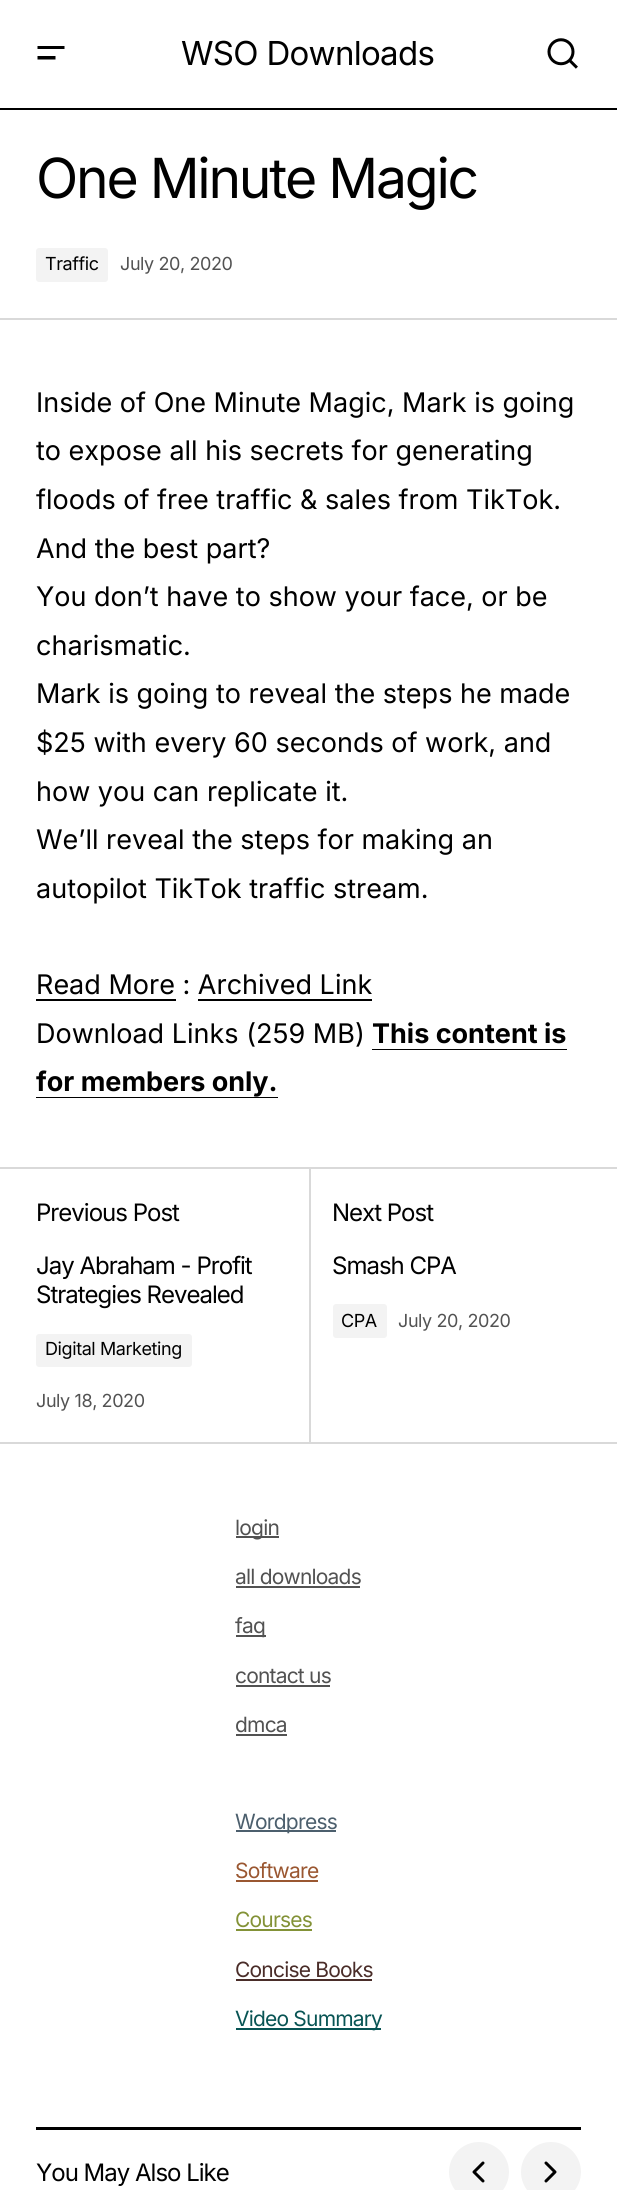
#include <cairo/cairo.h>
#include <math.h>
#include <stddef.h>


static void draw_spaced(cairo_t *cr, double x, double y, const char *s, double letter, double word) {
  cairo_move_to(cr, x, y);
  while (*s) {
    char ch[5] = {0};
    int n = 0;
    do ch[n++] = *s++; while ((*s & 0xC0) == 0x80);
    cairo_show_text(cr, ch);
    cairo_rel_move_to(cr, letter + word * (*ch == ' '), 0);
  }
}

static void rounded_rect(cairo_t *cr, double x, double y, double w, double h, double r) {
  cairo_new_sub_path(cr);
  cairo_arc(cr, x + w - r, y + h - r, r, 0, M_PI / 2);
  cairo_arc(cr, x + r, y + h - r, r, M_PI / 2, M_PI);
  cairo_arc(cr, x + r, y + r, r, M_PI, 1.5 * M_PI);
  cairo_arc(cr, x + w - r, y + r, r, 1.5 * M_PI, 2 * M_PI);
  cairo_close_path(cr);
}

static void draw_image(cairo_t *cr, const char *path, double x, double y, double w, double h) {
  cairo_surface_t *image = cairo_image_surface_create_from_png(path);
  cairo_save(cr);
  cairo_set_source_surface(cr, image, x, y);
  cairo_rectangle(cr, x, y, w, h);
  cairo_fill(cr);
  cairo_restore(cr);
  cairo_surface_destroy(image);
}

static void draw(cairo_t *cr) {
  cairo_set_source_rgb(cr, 1, 1, 1);
  cairo_paint(cr);
  cairo_set_source_rgb(cr, 0, 0, 0);
  cairo_new_path(cr);
  cairo_move_to(cr, 37.5, 46);
  cairo_line_to(cr, 64.5, 46);
  cairo_line_to(cr, 64.5, 49);
  cairo_line_to(cr, 37.5, 49);
  cairo_close_path(cr);
  cairo_move_to(cr, 37.5, 56);
  cairo_line_to(cr, 55.5, 56);
  cairo_line_to(cr, 55.5, 59.5);
  cairo_line_to(cr, 37.5, 59.5);
  cairo_close_path(cr);
  cairo_fill(cr);
  draw_image(cr, "images/1.png", 547, 38, 31, 31);
  cairo_rectangle(cr, 0, 108, 617, 2);
  cairo_fill(cr);
  cairo_set_source_rgb(cr, 217 / 255.0, 217 / 255.0, 217 / 255.0);
  cairo_rectangle(cr, 0, 318, 617, 2);
  cairo_fill(cr);
  cairo_set_source_rgb(cr, 243 / 255.0, 243 / 255.0, 243 / 255.0);
  rounded_rect(cr, 36, 248, 72, 34, 3);
  cairo_fill(cr);
  cairo_set_source_rgb(cr, 0, 0, 0);
  cairo_rectangle(cr, 36, 999, 140, 2);
  cairo_fill(cr);
  cairo_rectangle(cr, 198, 999, 174, 2);
  cairo_fill(cr);
  cairo_rectangle(cr, 372, 1049, 195, 1);
  cairo_fill(cr);
  cairo_rectangle(cr, 36, 1097, 242, 1);
  cairo_fill(cr);
  cairo_set_source_rgb(cr, 217 / 255.0, 217 / 255.0, 217 / 255.0);
  cairo_rectangle(cr, 0, 1167, 617, 2);
  cairo_fill(cr);
  cairo_rectangle(cr, 0, 1442, 617, 2);
  cairo_fill(cr);
  cairo_set_source_rgb(cr, 243 / 255.0, 243 / 255.0, 243 / 255.0);
  rounded_rect(cr, 36, 1334, 156, 33, 3);
  cairo_fill(cr);
  cairo_set_source_rgb(cr, 217 / 255.0, 217 / 255.0, 217 / 255.0);
  cairo_rectangle(cr, 309, 1169, 2, 273);
  cairo_fill(cr);
  cairo_set_source_rgb(cr, 243 / 255.0, 243 / 255.0, 243 / 255.0);
  rounded_rect(cr, 333, 1304, 54, 34, 3);
  cairo_fill(cr);
  cairo_set_source_rgb(cr, 82 / 255.0, 82 / 255.0, 82 / 255.0);
  cairo_rectangle(cr, 236, 1536, 43, 2);
  cairo_fill(cr);
  cairo_rectangle(cr, 236, 1586, 124, 2);
  cairo_fill(cr);
  cairo_rectangle(cr, 236, 1635, 30, 2);
  cairo_fill(cr);
  cairo_rectangle(cr, 236, 1685, 94, 2);
  cairo_fill(cr);
  cairo_rectangle(cr, 236, 1734, 51, 2);
  cairo_fill(cr);
  cairo_set_source_rgb(cr, 76 / 255.0, 95 / 255.0, 109 / 255.0);
  cairo_rectangle(cr, 236, 1830, 100, 2);
  cairo_fill(cr);
  cairo_set_source_rgb(cr, 154 / 255.0, 87 / 255.0, 49 / 255.0);
  cairo_rectangle(cr, 236, 1880, 82, 2);
  cairo_fill(cr);
  cairo_set_source_rgb(cr, 131 / 255.0, 146 / 255.0, 55 / 255.0);
  cairo_rectangle(cr, 236, 1929, 76, 2);
  cairo_fill(cr);
  cairo_set_source_rgb(cr, 74 / 255.0, 45 / 255.0, 41 / 255.0);
  cairo_rectangle(cr, 236, 1979, 136, 2);
  cairo_fill(cr);
  cairo_set_source_rgb(cr, 8 / 255.0, 84 / 255.0, 84 / 255.0);
  cairo_rectangle(cr, 236, 2028, 145, 2);
  cairo_fill(cr);
  cairo_set_source_rgb(cr, 0, 0, 0);
  cairo_rectangle(cr, 36, 2127, 545, 3);
  cairo_fill(cr);
  cairo_set_source_rgb(cr, 243 / 255.0, 243 / 255.0, 243 / 255.0);
  cairo_arc(cr, 479, 2172, 30, 0, 2 * M_PI);
  cairo_fill(cr);
  draw_image(cr, "images/2.png", 472, 2161, 13, 22);
  cairo_arc(cr, 551, 2172, 30, 0, 2 * M_PI);
  cairo_fill(cr);
  draw_image(cr, "images/3.png", 544, 2161, 13, 22);
  cairo_select_font_face(cr, "Inter", CAIRO_FONT_SLANT_NORMAL, CAIRO_FONT_WEIGHT_NORMAL);
  cairo_set_font_size(cr, 33);
  cairo_set_source_rgb(cr, 0, 0, 0);
  draw_spaced(cr, 181, 65, "WSO Downloads", -0.7, 0);
  cairo_set_font_size(cr, 55.25);
  draw_spaced(cr, 36, 198, "One Minute Magic", -2.25, 0);
  cairo_set_font_size(cr, 18);
  draw_spaced(cr, 45, 270, "Traffic", -0.4, 0);
  cairo_set_source_rgb(cr, 82 / 255.0, 82 / 255.0, 82 / 255.0);
  draw_spaced(cr, 120, 270, "July 20, 2020", -0.4, 0);
  cairo_set_font_size(cr, 27);
  cairo_set_source_rgb(cr, 0, 0, 0);
  cairo_move_to(cr, 36, 412);
  cairo_show_text(cr, "Inside of One Minute Magic, Mark is going");
  cairo_move_to(cr, 36, 460);
  cairo_show_text(cr, "to expose all his secrets for generating");
  cairo_move_to(cr, 36, 509);
  cairo_show_text(cr, "floods of free traffic & sales from TikTok.");
  cairo_move_to(cr, 36, 558);
  cairo_show_text(cr, "And the best part?");
  cairo_move_to(cr, 36, 606);
  cairo_show_text(cr, "You don’t have to show your face, or be");
  cairo_move_to(cr, 36, 655);
  cairo_show_text(cr, "charismatic.");
  cairo_move_to(cr, 36, 703);
  cairo_show_text(cr, "Mark is going to reveal the steps he made");
  cairo_move_to(cr, 36, 752);
  cairo_show_text(cr, "$25 with every 60 seconds of work, and");
  cairo_move_to(cr, 36, 801);
  cairo_show_text(cr, "how you can replicate it.");
  cairo_move_to(cr, 36, 849);
  cairo_show_text(cr, "We’ll reveal the steps for making an");
  cairo_move_to(cr, 36, 898);
  cairo_show_text(cr, "autopilot TikTok traffic stream.");
  cairo_move_to(cr, 36, 994);
  cairo_show_text(cr, "Read More : Archived Link");
  cairo_move_to(cr, 36, 1043);
  cairo_show_text(cr, "Download Links (259 MB)");
  cairo_select_font_face(cr, "Inter", CAIRO_FONT_SLANT_NORMAL, CAIRO_FONT_WEIGHT_BOLD);
  cairo_move_to(cr, 372, 1043);
  cairo_show_text(cr, "This content is");
  cairo_move_to(cr, 36, 1091);
  cairo_show_text(cr, "for members only.");
  cairo_select_font_face(cr, "Inter", CAIRO_FONT_SLANT_NORMAL, CAIRO_FONT_WEIGHT_NORMAL);
  cairo_set_font_size(cr, 24);
  draw_spaced(cr, 36, 1221, "Previous Post", -1, 0);
  draw_spaced(cr, 36, 1274, "Jay Abraham - Profit", -1, 0);
  draw_spaced(cr, 36, 1303, "Strategies Revealed", -1, 0);
  cairo_set_font_size(cr, 18);
  draw_spaced(cr, 45, 1355, "Digital Marketing", -0.4, 0);
  cairo_set_source_rgb(cr, 82 / 255.0, 82 / 255.0, 82 / 255.0);
  draw_spaced(cr, 36, 1407, "July 18, 2020", -0.4, 0);
  cairo_set_font_size(cr, 24);
  cairo_set_source_rgb(cr, 0, 0, 0);
  draw_spaced(cr, 332, 1221, "Next Post", -1, 0);
  draw_spaced(cr, 332, 1274, "Smash CPA", -1, 0);
  cairo_set_font_size(cr, 18);
  draw_spaced(cr, 341, 1327, "CPA", -0.4, 0);
  cairo_set_source_rgb(cr, 82 / 255.0, 82 / 255.0, 82 / 255.0);
  draw_spaced(cr, 398, 1327, "July 20, 2020", -0.4, 0);
  cairo_set_font_size(cr, 21);
  draw_spaced(cr, 235, 1535, "login", -0.8, 0);
  draw_spaced(cr, 235, 1584, "all downloads", -0.8, 0);
  draw_spaced(cr, 235, 1633, "faq", -0.8, 0);
  draw_spaced(cr, 235, 1683, "contact us", -0.8, 0);
  draw_spaced(cr, 235, 1732, "dmca", -0.8, 0);
  cairo_set_source_rgb(cr, 76 / 255.0, 95 / 255.0, 109 / 255.0);
  draw_spaced(cr, 235, 1829, "Wordpress", -0.8, 0);
  cairo_set_source_rgb(cr, 154 / 255.0, 87 / 255.0, 49 / 255.0);
  draw_spaced(cr, 235, 1878, "Software", -0.8, 0);
  cairo_set_source_rgb(cr, 131 / 255.0, 146 / 255.0, 55 / 255.0);
  draw_spaced(cr, 235, 1927, "Courses", -0.8, 0);
  cairo_set_source_rgb(cr, 74 / 255.0, 45 / 255.0, 41 / 255.0);
  draw_spaced(cr, 235, 1977, "Concise Books", -0.8, 0);
  cairo_set_source_rgb(cr, 8 / 255.0, 84 / 255.0, 84 / 255.0);
  draw_spaced(cr, 235, 2026, "Video Summary", -0.8, 0);
  cairo_set_font_size(cr, 24);
  cairo_set_source_rgb(cr, 0, 0, 0);
  draw_spaced(cr, 36, 2181, "You May Also Like", -1, 0);
}

int main(void) {
  cairo_surface_t *surface = cairo_image_surface_create(CAIRO_FORMAT_RGB24, 639, 2190);
  cairo_t *cr = cairo_create(surface);
  cairo_font_options_t *options = cairo_font_options_create();
  cairo_font_options_set_hint_metrics(options, CAIRO_HINT_METRICS_OFF);
  cairo_font_options_set_hint_style(options, CAIRO_HINT_STYLE_NONE);
  cairo_set_font_options(cr, options);
  cairo_set_miter_limit(cr, 4);
  draw(cr);
  cairo_surface_write_to_png(surface, "out.png");
  cairo_font_options_destroy(options);
  cairo_destroy(cr);
  cairo_surface_destroy(surface);
  return 0;
}
